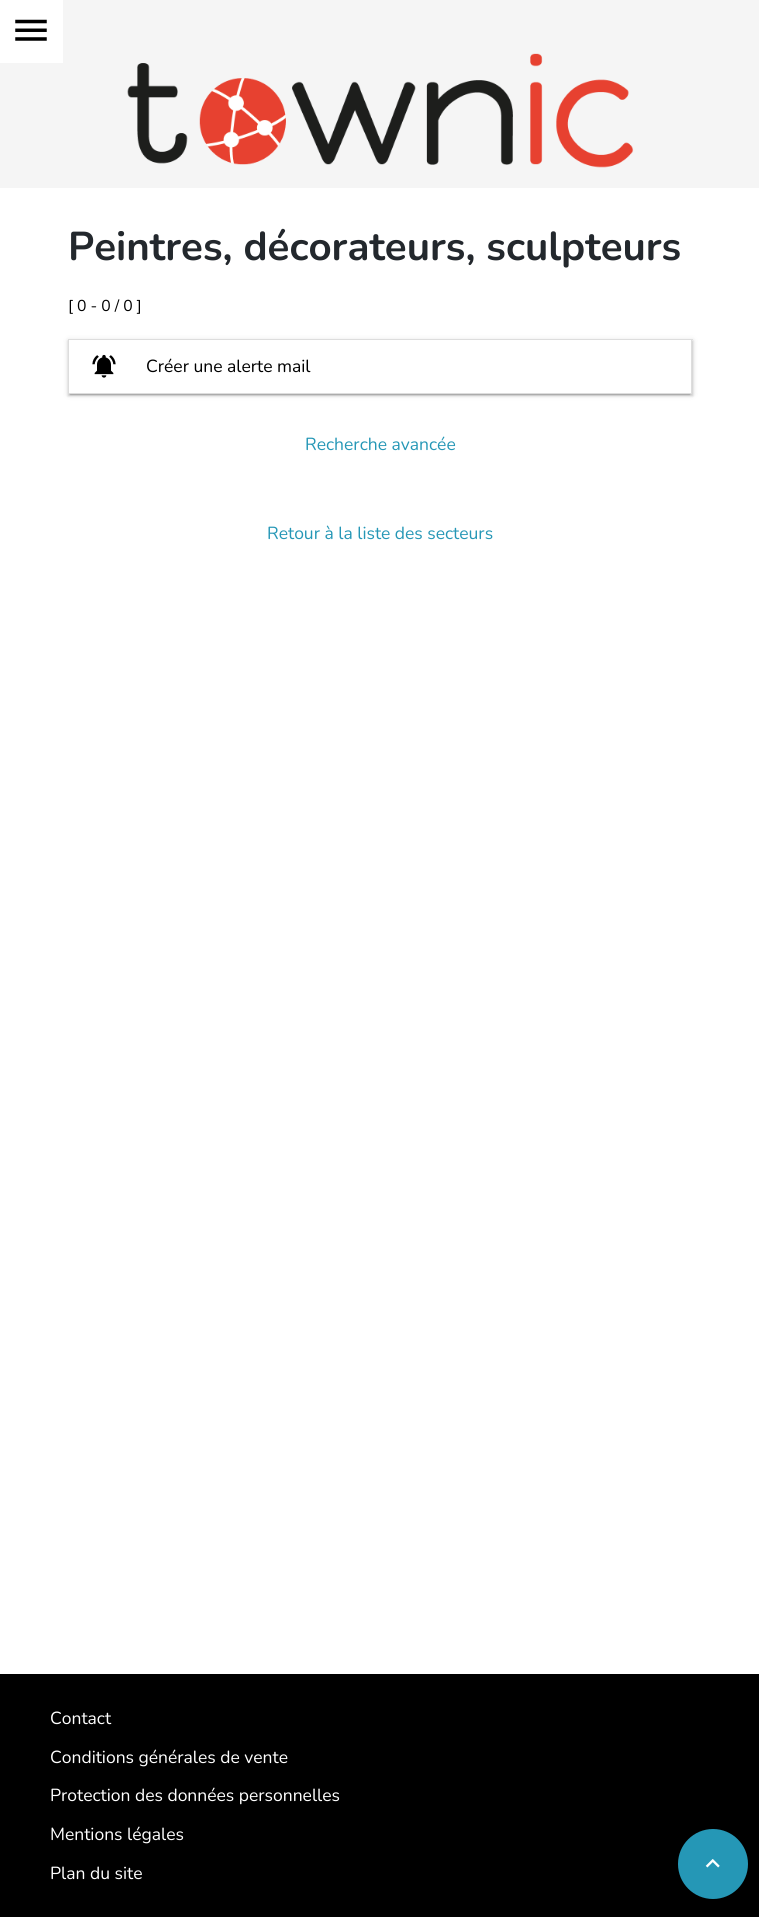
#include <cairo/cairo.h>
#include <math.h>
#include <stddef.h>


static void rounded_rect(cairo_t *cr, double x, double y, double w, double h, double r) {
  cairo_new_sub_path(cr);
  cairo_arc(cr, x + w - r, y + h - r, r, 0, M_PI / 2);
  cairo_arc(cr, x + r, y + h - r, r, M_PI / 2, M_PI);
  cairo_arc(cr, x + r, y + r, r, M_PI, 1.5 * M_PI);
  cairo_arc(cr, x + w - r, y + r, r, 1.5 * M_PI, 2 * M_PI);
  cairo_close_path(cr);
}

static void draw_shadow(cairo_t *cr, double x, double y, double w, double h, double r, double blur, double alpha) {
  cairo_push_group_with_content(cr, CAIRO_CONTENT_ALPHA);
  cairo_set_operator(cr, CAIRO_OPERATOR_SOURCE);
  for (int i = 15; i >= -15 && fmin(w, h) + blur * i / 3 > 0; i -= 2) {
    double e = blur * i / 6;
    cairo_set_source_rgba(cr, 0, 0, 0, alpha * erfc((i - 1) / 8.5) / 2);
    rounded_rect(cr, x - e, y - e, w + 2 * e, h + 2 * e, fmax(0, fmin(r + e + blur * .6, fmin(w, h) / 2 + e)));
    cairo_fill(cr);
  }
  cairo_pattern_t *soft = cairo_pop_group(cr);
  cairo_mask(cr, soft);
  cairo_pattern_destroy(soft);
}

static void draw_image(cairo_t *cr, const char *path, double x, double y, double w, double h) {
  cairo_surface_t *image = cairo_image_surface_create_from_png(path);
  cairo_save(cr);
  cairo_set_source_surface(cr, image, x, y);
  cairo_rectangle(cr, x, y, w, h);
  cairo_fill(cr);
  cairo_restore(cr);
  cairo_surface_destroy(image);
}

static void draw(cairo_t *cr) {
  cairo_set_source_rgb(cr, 1, 1, 1);
  cairo_paint(cr);
  cairo_set_source_rgb(cr, 245 / 255.0, 245 / 255.0, 245 / 255.0);
  cairo_rectangle(cr, 0, 0, 759, 188);
  cairo_fill(cr);
  draw_image(cr, "images/1.png", 127, 53, 507, 115);
  cairo_set_source_rgb(cr, 1, 1, 1);
  cairo_rectangle(cr, 0, 0, 63, 63);
  cairo_fill(cr);
  draw_image(cr, "images/2.png", 15, 19, 32, 22);
  cairo_set_source_rgb(cr, 0, 0, 0);
  draw_shadow(cr, 70, 345, 620, 50, 0, 0.5, 0.2);
  draw_shadow(cr, 68, 340, 625, 55, 0, 3, 0.12);
  draw_shadow(cr, 68, 341, 625, 55, 0, 1, 0.14);
  cairo_set_source_rgb(cr, 221 / 255.0, 221 / 255.0, 221 / 255.0);
  cairo_rectangle(cr, 68, 339, 625, 1);
  cairo_fill(cr);
  cairo_rectangle(cr, 691, 339, 1, 55);
  cairo_fill(cr);
  cairo_rectangle(cr, 68, 339, 1, 55);
  cairo_fill(cr);
  cairo_set_source_rgb(cr, 1, 1, 1);
  cairo_rectangle(cr, 69, 340, 622, 53);
  cairo_fill(cr);
  cairo_set_source_rgb(cr, 221 / 255.0, 221 / 255.0, 221 / 255.0);
  cairo_rectangle(cr, 69, 393, 622, 1);
  cairo_fill(cr);
  draw_image(cr, "images/3.png", 92, 354, 24, 24);
  cairo_set_source_rgb(cr, 0, 0, 0);
  cairo_rectangle(cr, 0, 1674, 759, 243);
  cairo_fill(cr);
  cairo_set_source_rgb(cr, 37 / 255.0, 151 / 255.0, 182 / 255.0);
  cairo_arc(cr, 713, 1864, 35, 0, 2 * M_PI);
  cairo_fill(cr);
  draw_image(cr, "images/4.png", 705, 1859, 15, 9);
  cairo_select_font_face(cr, "Nunito", CAIRO_FONT_SLANT_NORMAL, CAIRO_FONT_WEIGHT_BOLD);
  cairo_set_font_size(cr, 40.25);
  cairo_set_source_rgb(cr, 35 / 255.0, 40 / 255.0, 45 / 255.0);
  cairo_move_to(cr, 68, 260);
  cairo_show_text(cr, "Peintres, décorateurs, sculpteurs");
  cairo_select_font_face(cr, "Nunito", CAIRO_FONT_SLANT_NORMAL, CAIRO_FONT_WEIGHT_NORMAL);
  cairo_set_font_size(cr, 15.75);
  cairo_set_source_rgb(cr, 0, 0, 0);
  cairo_move_to(cr, 68, 311);
  cairo_show_text(cr, "[ 0 - 0 / 0 ]");
  cairo_set_font_size(cr, 17.5);
  cairo_move_to(cr, 146, 372);
  cairo_show_text(cr, "Créer une alerte mail");
  cairo_set_source_rgb(cr, 37 / 255.0, 151 / 255.0, 182 / 255.0);
  cairo_move_to(cr, 305, 450);
  cairo_show_text(cr, "Recherche avancée");
  cairo_move_to(cr, 267, 539);
  cairo_show_text(cr, "Retour à la liste des secteurs");
  cairo_set_source_rgb(cr, 1, 1, 1);
  cairo_move_to(cr, 50, 1724);
  cairo_show_text(cr, "Contact");
  cairo_move_to(cr, 50, 1763);
  cairo_show_text(cr, "Conditions générales de vente");
  cairo_move_to(cr, 50, 1801);
  cairo_show_text(cr, "Protection des données personnelles");
  cairo_move_to(cr, 50, 1840);
  cairo_show_text(cr, "Mentions légales");
  cairo_move_to(cr, 50, 1879);
  cairo_show_text(cr, "Plan du site");
}

int main(void) {
  cairo_surface_t *surface = cairo_image_surface_create(CAIRO_FORMAT_RGB24, 759, 1917);
  cairo_t *cr = cairo_create(surface);
  cairo_font_options_t *options = cairo_font_options_create();
  cairo_font_options_set_hint_metrics(options, CAIRO_HINT_METRICS_OFF);
  cairo_font_options_set_hint_style(options, CAIRO_HINT_STYLE_NONE);
  cairo_set_font_options(cr, options);
  cairo_set_miter_limit(cr, 4);
  draw(cr);
  cairo_surface_write_to_png(surface, "out.png");
  cairo_font_options_destroy(options);
  cairo_destroy(cr);
  cairo_surface_destroy(surface);
  return 0;
}
